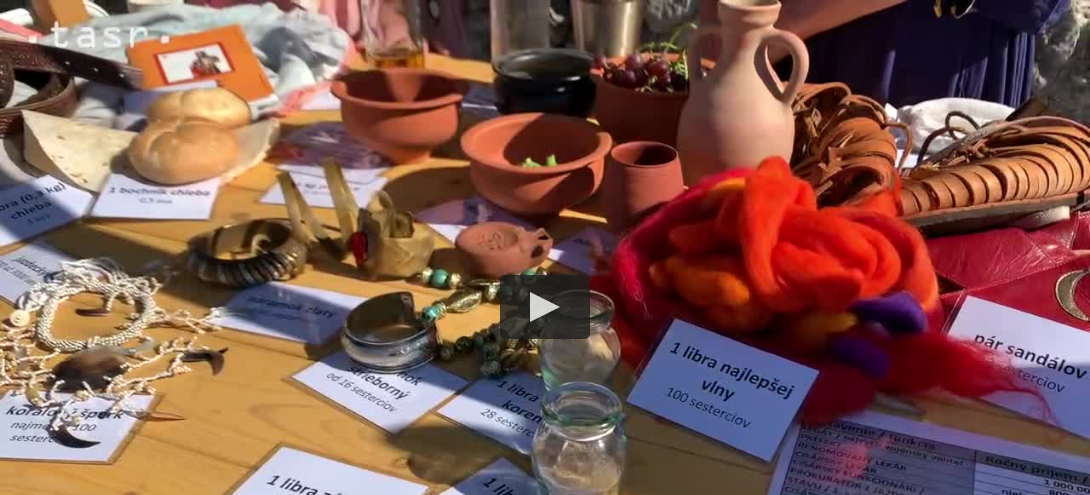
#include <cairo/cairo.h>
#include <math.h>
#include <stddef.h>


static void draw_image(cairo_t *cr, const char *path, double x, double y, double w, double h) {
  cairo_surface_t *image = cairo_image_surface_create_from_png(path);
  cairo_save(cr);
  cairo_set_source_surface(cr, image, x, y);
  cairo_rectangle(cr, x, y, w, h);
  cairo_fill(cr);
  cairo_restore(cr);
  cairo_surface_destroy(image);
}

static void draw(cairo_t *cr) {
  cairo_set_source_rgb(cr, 1, 1, 1);
  cairo_paint(cr);
  draw_image(cr, "images/1.png", 0, 0, 1090, 495);
  draw_image(cr, "images/2.png", 500, 275, 90, 64);
  draw_image(cr, "images/3.png", 530, 292, 30, 30);
}

int main(void) {
  cairo_surface_t *surface = cairo_image_surface_create(CAIRO_FORMAT_RGB24, 1090, 495);
  cairo_t *cr = cairo_create(surface);
  cairo_font_options_t *options = cairo_font_options_create();
  cairo_font_options_set_hint_metrics(options, CAIRO_HINT_METRICS_OFF);
  cairo_font_options_set_hint_style(options, CAIRO_HINT_STYLE_NONE);
  cairo_set_font_options(cr, options);
  cairo_set_miter_limit(cr, 4);
  draw(cr);
  cairo_surface_write_to_png(surface, "out.png");
  cairo_font_options_destroy(options);
  cairo_destroy(cr);
  cairo_surface_destroy(surface);
  return 0;
}
